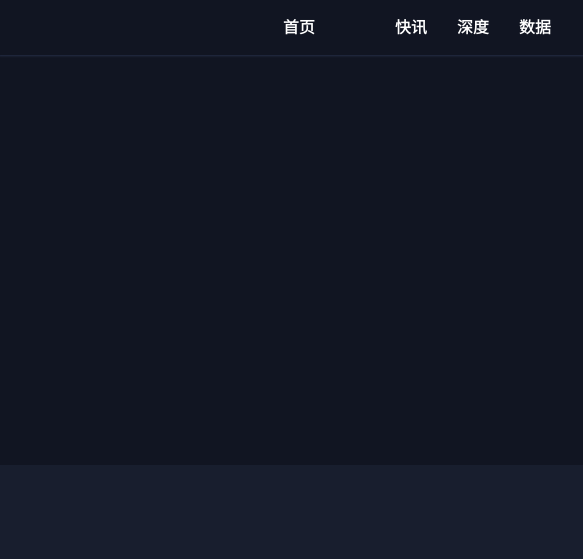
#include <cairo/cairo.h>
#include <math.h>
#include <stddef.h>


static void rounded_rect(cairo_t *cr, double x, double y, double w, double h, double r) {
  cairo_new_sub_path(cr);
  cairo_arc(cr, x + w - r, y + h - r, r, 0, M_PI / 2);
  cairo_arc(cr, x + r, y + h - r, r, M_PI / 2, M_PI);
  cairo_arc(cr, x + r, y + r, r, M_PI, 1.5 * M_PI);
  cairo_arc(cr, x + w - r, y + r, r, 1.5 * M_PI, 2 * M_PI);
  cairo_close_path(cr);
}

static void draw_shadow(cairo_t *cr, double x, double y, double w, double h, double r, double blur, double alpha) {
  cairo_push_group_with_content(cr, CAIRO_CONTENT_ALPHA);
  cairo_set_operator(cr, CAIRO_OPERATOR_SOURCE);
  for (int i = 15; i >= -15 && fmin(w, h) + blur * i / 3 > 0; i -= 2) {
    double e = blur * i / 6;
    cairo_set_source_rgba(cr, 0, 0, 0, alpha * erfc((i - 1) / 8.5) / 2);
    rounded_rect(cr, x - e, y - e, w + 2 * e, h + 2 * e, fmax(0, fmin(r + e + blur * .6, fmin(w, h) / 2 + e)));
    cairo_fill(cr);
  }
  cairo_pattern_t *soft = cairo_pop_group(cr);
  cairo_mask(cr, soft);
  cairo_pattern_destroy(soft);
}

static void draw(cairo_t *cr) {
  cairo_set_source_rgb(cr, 17 / 255.0, 21 / 255.0, 34 / 255.0);
  cairo_paint(cr);
  cairo_save(cr);
  cairo_rectangle(cr, 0, 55, 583, 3);
  cairo_clip(cr);
  cairo_set_source_rgb(cr, 35 / 255.0, 44 / 255.0, 68 / 255.0);
  draw_shadow(cr, 0, 1, 583, 55, 0, 1, 1);
  cairo_restore(cr);
  cairo_set_source_rgb(cr, 24 / 255.0, 30 / 255.0, 46 / 255.0);
  cairo_rectangle(cr, 0, 465, 583, 94);
  cairo_fill(cr);
  cairo_select_font_face(cr, "Noto Sans CJK SC", CAIRO_FONT_SLANT_NORMAL, CAIRO_FONT_WEIGHT_BOLD);
  cairo_set_font_size(cr, 16);
  cairo_set_source_rgb(cr, 1, 1, 1);
  cairo_move_to(cr, 283, 33);
  cairo_show_text(cr, "首页");
  cairo_move_to(cr, 395, 33);
  cairo_show_text(cr, "快讯");
  cairo_move_to(cr, 457, 33);
  cairo_show_text(cr, "深度");
  cairo_move_to(cr, 519, 33);
  cairo_show_text(cr, "数据");
}

int main(void) {
  cairo_surface_t *surface = cairo_image_surface_create(CAIRO_FORMAT_RGB24, 583, 559);
  cairo_t *cr = cairo_create(surface);
  cairo_font_options_t *options = cairo_font_options_create();
  cairo_font_options_set_hint_metrics(options, CAIRO_HINT_METRICS_OFF);
  cairo_font_options_set_hint_style(options, CAIRO_HINT_STYLE_NONE);
  cairo_set_font_options(cr, options);
  cairo_set_miter_limit(cr, 4);
  draw(cr);
  cairo_surface_write_to_png(surface, "out.png");
  cairo_font_options_destroy(options);
  cairo_destroy(cr);
  cairo_surface_destroy(surface);
  return 0;
}
